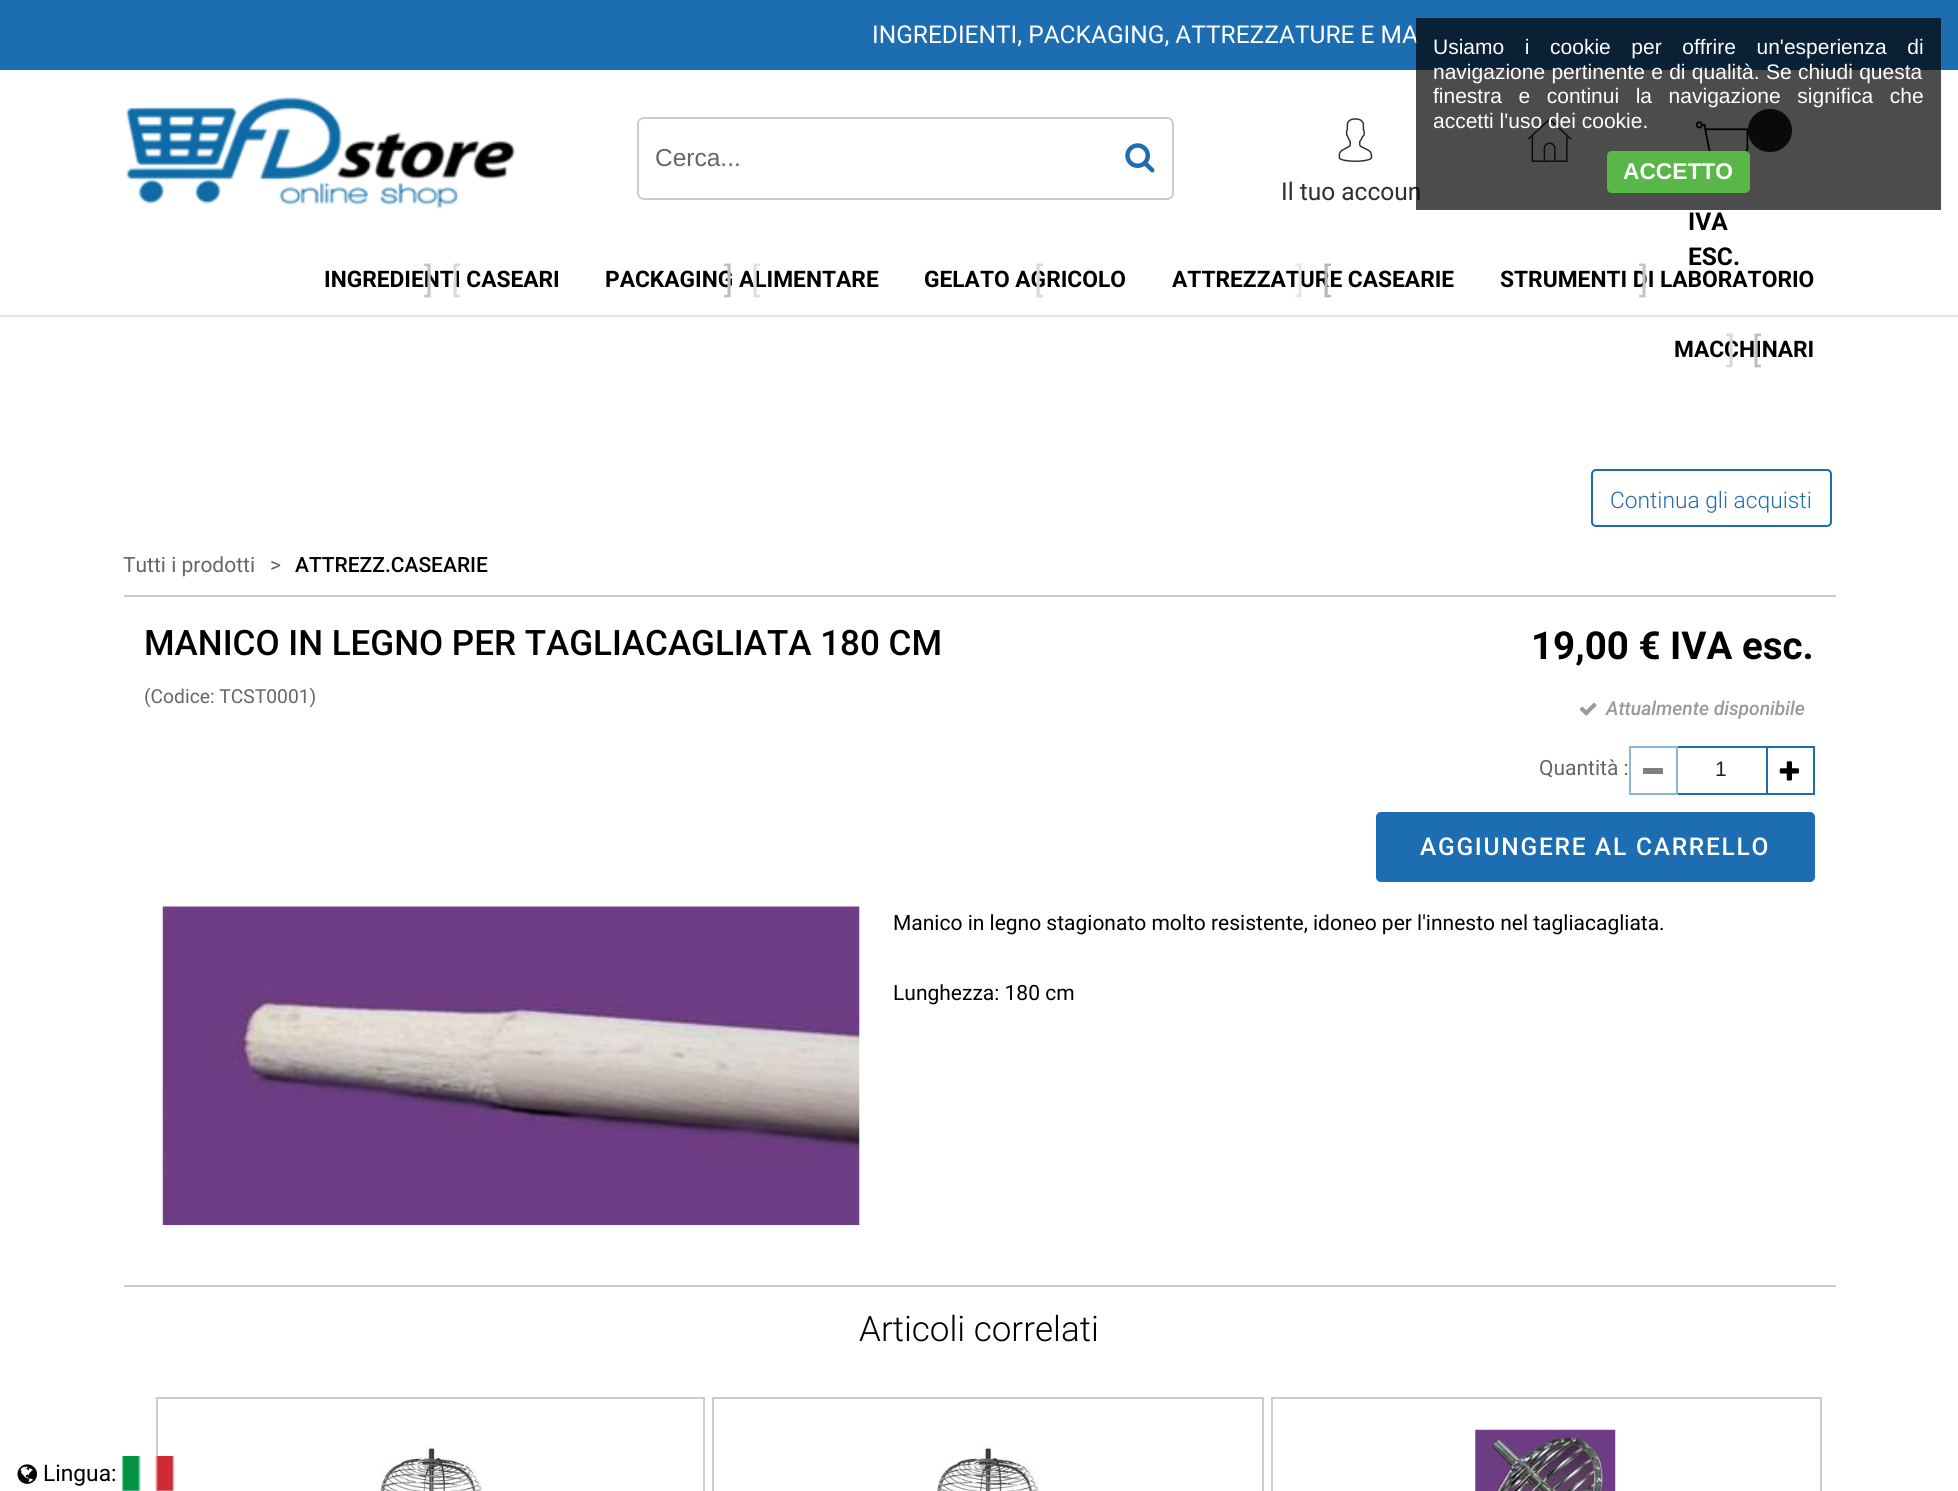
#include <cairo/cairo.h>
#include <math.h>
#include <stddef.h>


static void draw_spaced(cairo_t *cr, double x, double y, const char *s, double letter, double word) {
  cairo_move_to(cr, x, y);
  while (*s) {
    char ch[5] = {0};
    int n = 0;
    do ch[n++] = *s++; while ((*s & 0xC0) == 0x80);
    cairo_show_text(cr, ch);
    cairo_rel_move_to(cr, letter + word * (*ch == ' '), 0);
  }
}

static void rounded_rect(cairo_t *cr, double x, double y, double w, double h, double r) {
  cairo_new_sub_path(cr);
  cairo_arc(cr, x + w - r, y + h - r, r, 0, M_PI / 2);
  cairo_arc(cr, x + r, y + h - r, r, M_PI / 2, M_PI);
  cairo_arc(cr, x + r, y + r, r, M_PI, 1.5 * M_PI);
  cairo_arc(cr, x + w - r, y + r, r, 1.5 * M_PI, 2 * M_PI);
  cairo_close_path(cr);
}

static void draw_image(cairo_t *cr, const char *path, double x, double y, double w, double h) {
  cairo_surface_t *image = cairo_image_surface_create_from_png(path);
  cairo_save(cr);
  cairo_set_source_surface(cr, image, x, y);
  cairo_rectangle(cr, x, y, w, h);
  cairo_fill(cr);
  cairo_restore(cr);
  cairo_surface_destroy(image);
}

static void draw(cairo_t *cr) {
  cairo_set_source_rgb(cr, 1, 1, 1);
  cairo_paint(cr);
  cairo_set_source_rgb(cr, 29 / 255.0, 109 / 255.0, 178 / 255.0);
  cairo_rectangle(cr, 0, 0, 1958, 70);
  cairo_fill(cr);
  cairo_set_source_rgb(cr, 226 / 255.0, 226 / 255.0, 226 / 255.0);
  cairo_rectangle(cr, 0, 315, 1958, 2);
  cairo_fill(cr);
  draw_image(cr, "images/1.png", 125, 97, 390, 112);
  rounded_rect(cr, 638, 118, 535, 81, 6);
  cairo_set_source_rgb(cr, 204 / 255.0, 204 / 255.0, 204 / 255.0);
  cairo_stroke(cr);
  draw_image(cr, "images/2.png", 1125, 143, 30, 30);
  draw_image(cr, "images/3.png", 1527, 118, 45, 44);
  draw_image(cr, "images/4.png", 1338, 118, 35, 44);
  draw_image(cr, "images/5.png", 1695, 121, 54, 31);
  cairo_set_source_rgb(cr, 29 / 255.0, 33 / 255.0, 35 / 255.0);
  rounded_rect(cr, 1748, 109, 44, 43, 21.5);
  cairo_fill(cr);
  rounded_rect(cr, 1592, 470, 239, 56, 4);
  cairo_set_source_rgb(cr, 29 / 255.0, 109 / 255.0, 178 / 255.0);
  cairo_stroke(cr);
  cairo_set_source_rgb(cr, 204 / 255.0, 204 / 255.0, 204 / 255.0);
  cairo_rectangle(cr, 124, 595, 1712, 2);
  cairo_fill(cr);
  draw_image(cr, "images/6.png", 1579, 702, 18, 14);
  cairo_rectangle(cr, 1630, 747, 47, 47);
  cairo_set_source_rgb(cr, 142 / 255.0, 182 / 255.0, 217 / 255.0);
  cairo_stroke(cr);
  cairo_set_source_rgb(cr, 128 / 255.0, 128 / 255.0, 128 / 255.0);
  cairo_rectangle(cr, 1643, 768, 20, 6);
  cairo_fill(cr);
  cairo_set_source_rgb(cr, 29 / 255.0, 109 / 255.0, 178 / 255.0);
  cairo_rectangle(cr, 1678, 746, 88, 2);
  cairo_fill(cr);
  cairo_rectangle(cr, 1678, 793, 88, 2);
  cairo_fill(cr);
  cairo_rectangle(cr, 1767, 747, 47, 47);
  cairo_stroke(cr);
  draw_image(cr, "images/7.png", 1779, 761, 20, 20);
  rounded_rect(cr, 1376, 812, 439, 70, 5);
  cairo_fill(cr);
  draw_image(cr, "images/8.png", 162, 906, 698, 319);
  cairo_set_source_rgb(cr, 204 / 255.0, 204 / 255.0, 204 / 255.0);
  cairo_rectangle(cr, 124, 1285, 1712, 2);
  cairo_fill(cr);
  cairo_rectangle(cr, 157, 1398, 547, 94);
  cairo_stroke(cr);
  draw_image(cr, "images/9.png", 380, 1444, 104, 47);
  cairo_rectangle(cr, 713, 1398, 550, 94);
  cairo_stroke(cr);
  draw_image(cr, "images/10.png", 937, 1444, 103, 47);
  cairo_rectangle(cr, 1272, 1398, 549, 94);
  cairo_stroke(cr);
  draw_image(cr, "images/11.png", 1475, 1429, 141, 62);
  draw_image(cr, "images/12.png", 17, 1464, 20, 20);
  draw_image(cr, "images/13.png", 121, 1456, 54, 35);
  cairo_select_font_face(cr, "Roboto", CAIRO_FONT_SLANT_NORMAL, CAIRO_FONT_WEIGHT_NORMAL);
  cairo_set_font_size(cr, 24.5);
  cairo_set_source_rgb(cr, 1, 1, 1);
  cairo_move_to(cr, 872, 43);
  cairo_show_text(cr, "INGREDIENTI, PACKAGING, ATTREZZATURE E MA");
  cairo_select_font_face(cr, "Liberation Sans", CAIRO_FONT_SLANT_NORMAL, CAIRO_FONT_WEIGHT_NORMAL);
  cairo_set_source_rgb(cr, 102 / 255.0, 102 / 255.0, 102 / 255.0);
  cairo_move_to(cr, 655, 166);
  cairo_show_text(cr, "Cerca...");
  cairo_select_font_face(cr, "Roboto", CAIRO_FONT_SLANT_NORMAL, CAIRO_FONT_WEIGHT_NORMAL);
  cairo_set_source_rgb(cr, 46 / 255.0, 46 / 255.0, 46 / 255.0);
  cairo_move_to(cr, 1281, 200);
  cairo_show_text(cr, "Il tuo accoun");
  cairo_select_font_face(cr, "Roboto", CAIRO_FONT_SLANT_NORMAL, CAIRO_FONT_WEIGHT_BOLD);
  cairo_set_source_rgb(cr, 0, 0, 0);
  cairo_move_to(cr, 1688, 230);
  cairo_show_text(cr, "IVA");
  cairo_move_to(cr, 1688, 265);
  cairo_show_text(cr, "ESC.");
  cairo_set_font_size(cr, 22.75);
  cairo_move_to(cr, 324, 287);
  cairo_show_text(cr, "INGREDIENTI CASEARI");
  cairo_select_font_face(cr, "Roboto", CAIRO_FONT_SLANT_NORMAL, CAIRO_FONT_WEIGHT_NORMAL);
  cairo_set_font_size(cr, 35);
  cairo_set_source_rgb(cr, 197 / 255.0, 197 / 255.0, 197 / 255.0);
  cairo_move_to(cr, 424, 292);
  cairo_show_text(cr, "]");
  cairo_set_source_rgb(cr, 217 / 255.0, 217 / 255.0, 217 / 255.0);
  cairo_move_to(cr, 451, 292);
  cairo_show_text(cr, "[");
  cairo_select_font_face(cr, "Roboto", CAIRO_FONT_SLANT_NORMAL, CAIRO_FONT_WEIGHT_BOLD);
  cairo_set_font_size(cr, 22.75);
  cairo_set_source_rgb(cr, 0, 0, 0);
  cairo_move_to(cr, 605, 287);
  cairo_show_text(cr, "PACKAGING ALIMENTARE");
  cairo_select_font_face(cr, "Roboto", CAIRO_FONT_SLANT_NORMAL, CAIRO_FONT_WEIGHT_NORMAL);
  cairo_set_font_size(cr, 35);
  cairo_set_source_rgb(cr, 191 / 255.0, 191 / 255.0, 191 / 255.0);
  cairo_move_to(cr, 724, 292);
  cairo_show_text(cr, "]");
  cairo_set_source_rgb(cr, 223 / 255.0, 223 / 255.0, 223 / 255.0);
  cairo_move_to(cr, 751, 292);
  cairo_show_text(cr, "[");
  cairo_select_font_face(cr, "Roboto", CAIRO_FONT_SLANT_NORMAL, CAIRO_FONT_WEIGHT_BOLD);
  cairo_set_font_size(cr, 22.75);
  cairo_set_source_rgb(cr, 0, 0, 0);
  cairo_move_to(cr, 924, 287);
  cairo_show_text(cr, "GELATO AGRICOLO");
  cairo_select_font_face(cr, "Roboto", CAIRO_FONT_SLANT_NORMAL, CAIRO_FONT_WEIGHT_NORMAL);
  cairo_set_font_size(cr, 35);
  cairo_set_source_rgb(cr, 217 / 255.0, 217 / 255.0, 217 / 255.0);
  cairo_move_to(cr, 1034, 292);
  cairo_show_text(cr, "[");
  cairo_select_font_face(cr, "Roboto", CAIRO_FONT_SLANT_NORMAL, CAIRO_FONT_WEIGHT_BOLD);
  cairo_set_font_size(cr, 22.75);
  cairo_set_source_rgb(cr, 0, 0, 0);
  cairo_move_to(cr, 1172, 287);
  cairo_show_text(cr, "ATTREZZATURE CASEARIE");
  cairo_select_font_face(cr, "Roboto", CAIRO_FONT_SLANT_NORMAL, CAIRO_FONT_WEIGHT_NORMAL);
  cairo_set_font_size(cr, 35);
  cairo_set_source_rgb(cr, 230 / 255.0, 230 / 255.0, 230 / 255.0);
  cairo_move_to(cr, 1295, 292);
  cairo_show_text(cr, "]");
  cairo_set_source_rgb(cr, 183 / 255.0, 183 / 255.0, 183 / 255.0);
  cairo_move_to(cr, 1322, 292);
  cairo_show_text(cr, "[");
  cairo_select_font_face(cr, "Roboto", CAIRO_FONT_SLANT_NORMAL, CAIRO_FONT_WEIGHT_BOLD);
  cairo_set_font_size(cr, 22.75);
  cairo_set_source_rgb(cr, 0, 0, 0);
  cairo_move_to(cr, 1500, 287);
  cairo_show_text(cr, "STRUMENTI DI LABORATORIO");
  cairo_select_font_face(cr, "Roboto", CAIRO_FONT_SLANT_NORMAL, CAIRO_FONT_WEIGHT_NORMAL);
  cairo_set_font_size(cr, 35);
  cairo_set_source_rgb(cr, 197 / 255.0, 197 / 255.0, 197 / 255.0);
  cairo_move_to(cr, 1639, 292);
  cairo_show_text(cr, "]");
  cairo_select_font_face(cr, "Roboto", CAIRO_FONT_SLANT_NORMAL, CAIRO_FONT_WEIGHT_BOLD);
  cairo_set_font_size(cr, 22.75);
  cairo_set_source_rgb(cr, 0, 0, 0);
  cairo_move_to(cr, 1674, 357);
  cairo_show_text(cr, "MACCHINARI");
  cairo_select_font_face(cr, "Roboto", CAIRO_FONT_SLANT_NORMAL, CAIRO_FONT_WEIGHT_NORMAL);
  cairo_set_font_size(cr, 35);
  cairo_set_source_rgb(cr, 217 / 255.0, 217 / 255.0, 217 / 255.0);
  cairo_move_to(cr, 1726, 362);
  cairo_show_text(cr, "]");
  cairo_set_source_rgb(cr, 191 / 255.0, 191 / 255.0, 191 / 255.0);
  cairo_move_to(cr, 1752, 362);
  cairo_show_text(cr, "[");
  cairo_select_font_face(cr, "Roboto Light", CAIRO_FONT_SLANT_NORMAL, CAIRO_FONT_WEIGHT_NORMAL);
  cairo_set_font_size(cr, 22.75);
  cairo_set_source_rgb(cr, 29 / 255.0, 109 / 255.0, 178 / 255.0);
  cairo_move_to(cr, 1610, 508);
  cairo_show_text(cr, "Continua gli acquisti");
  cairo_select_font_face(cr, "Roboto", CAIRO_FONT_SLANT_NORMAL, CAIRO_FONT_WEIGHT_NORMAL);
  cairo_set_font_size(cr, 21);
  cairo_set_source_rgb(cr, 102 / 255.0, 102 / 255.0, 102 / 255.0);
  cairo_move_to(cr, 123, 572);
  cairo_show_text(cr, "Tutti i prodotti");
  cairo_move_to(cr, 270, 572);
  cairo_show_text(cr, ">");
  cairo_select_font_face(cr, "Roboto Medium", CAIRO_FONT_SLANT_NORMAL, CAIRO_FONT_WEIGHT_NORMAL);
  cairo_set_source_rgb(cr, 0, 0, 0);
  cairo_move_to(cr, 295, 572);
  cairo_show_text(cr, "ATTREZZ.CASEARIE");
  cairo_set_font_size(cr, 35);
  cairo_move_to(cr, 144, 655);
  cairo_show_text(cr, "MANICO IN LEGNO PER TAGLIACAGLIATA 180 CM");
  cairo_select_font_face(cr, "Roboto", CAIRO_FONT_SLANT_NORMAL, CAIRO_FONT_WEIGHT_NORMAL);
  cairo_set_font_size(cr, 19.25);
  cairo_set_source_rgb(cr, 102 / 255.0, 102 / 255.0, 102 / 255.0);
  cairo_move_to(cr, 144, 703);
  cairo_show_text(cr, "(Codice: TCST0001)");
  cairo_select_font_face(cr, "Roboto", CAIRO_FONT_SLANT_NORMAL, CAIRO_FONT_WEIGHT_BOLD);
  cairo_set_font_size(cr, 38.5);
  cairo_set_source_rgb(cr, 0, 0, 0);
  cairo_move_to(cr, 1531, 659);
  cairo_show_text(cr, "19,00 € IVA esc.");
  cairo_select_font_face(cr, "Roboto Medium", CAIRO_FONT_SLANT_ITALIC, CAIRO_FONT_WEIGHT_NORMAL);
  cairo_set_font_size(cr, 19.25);
  cairo_set_source_rgb(cr, 153 / 255.0, 153 / 255.0, 153 / 255.0);
  cairo_move_to(cr, 1606, 715);
  cairo_show_text(cr, "Attualmente disponibile");
  cairo_select_font_face(cr, "Roboto", CAIRO_FONT_SLANT_NORMAL, CAIRO_FONT_WEIGHT_NORMAL);
  cairo_set_font_size(cr, 21);
  cairo_set_source_rgb(cr, 102 / 255.0, 102 / 255.0, 102 / 255.0);
  cairo_move_to(cr, 1539, 775);
  cairo_show_text(cr, "Quantità :");
  cairo_select_font_face(cr, "Liberation Sans", CAIRO_FONT_SLANT_NORMAL, CAIRO_FONT_WEIGHT_NORMAL);
  cairo_set_source_rgb(cr, 33 / 255.0, 33 / 255.0, 33 / 255.0);
  cairo_move_to(cr, 1715, 776);
  cairo_show_text(cr, "1");
  cairo_select_font_face(cr, "Roboto Medium", CAIRO_FONT_SLANT_NORMAL, CAIRO_FONT_WEIGHT_NORMAL);
  cairo_set_font_size(cr, 24.5);
  cairo_set_source_rgb(cr, 1, 1, 1);
  draw_spaced(cr, 1420, 855, "AGGIUNGERE AL CARRELLO", 1.75, 0);
  cairo_select_font_face(cr, "Roboto", CAIRO_FONT_SLANT_NORMAL, CAIRO_FONT_WEIGHT_NORMAL);
  cairo_set_font_size(cr, 21);
  cairo_set_source_rgb(cr, 0, 0, 0);
  cairo_move_to(cr, 893, 930);
  cairo_show_text(cr, "Manico in legno stagionato molto resistente, idoneo per l'innesto nel tagliacagliata.");
  cairo_move_to(cr, 893, 1000);
  cairo_show_text(cr, "Lunghezza: 180 cm");
  cairo_select_font_face(cr, "Roboto Light", CAIRO_FONT_SLANT_NORMAL, CAIRO_FONT_WEIGHT_NORMAL);
  cairo_set_font_size(cr, 35);
  cairo_move_to(cr, 859, 1341);
  cairo_show_text(cr, "Articoli correlati");
  cairo_select_font_face(cr, "Roboto", CAIRO_FONT_SLANT_NORMAL, CAIRO_FONT_WEIGHT_NORMAL);
  cairo_set_font_size(cr, 22.75);
  cairo_move_to(cr, 43, 1481);
  cairo_show_text(cr, "Lingua:");
  cairo_set_source_rgba(cr, 0, 0, 0, 0.7);
  cairo_rectangle(cr, 1416, 18, 525, 192);
  cairo_fill(cr);
  cairo_select_font_face(cr, "Liberation Sans", CAIRO_FONT_SLANT_NORMAL, CAIRO_FONT_WEIGHT_NORMAL);
  cairo_set_font_size(cr, 21);
  cairo_set_source_rgb(cr, 1, 1, 1);
  draw_spaced(cr, 1433, 54, "Usiamo i cookie per offrire un'esperienza di", 0, 14.75);
  draw_spaced(cr, 1433, 79, "navigazione pertinente e di qualità. Se chiudi questa", 0, 0.5);
  draw_spaced(cr, 1433, 103, "finestra e continui la navigazione significa che", 0, 10.75);
  cairo_move_to(cr, 1433, 128);
  cairo_show_text(cr, "accetti l'uso dei cookie.");
  cairo_set_source_rgb(cr, 88 / 255.0, 183 / 255.0, 71 / 255.0);
  rounded_rect(cr, 1607, 151, 143, 42, 5);
  cairo_fill(cr);
  cairo_select_font_face(cr, "Liberation Sans", CAIRO_FONT_SLANT_NORMAL, CAIRO_FONT_WEIGHT_BOLD);
  cairo_set_font_size(cr, 22.75);
  cairo_set_source_rgb(cr, 1, 1, 1);
  cairo_move_to(cr, 1623, 179);
  cairo_show_text(cr, "ACCETTO");
}

int main(void) {
  cairo_surface_t *surface = cairo_image_surface_create(CAIRO_FORMAT_RGB24, 1958, 1491);
  cairo_t *cr = cairo_create(surface);
  cairo_font_options_t *options = cairo_font_options_create();
  cairo_font_options_set_hint_metrics(options, CAIRO_HINT_METRICS_OFF);
  cairo_font_options_set_hint_style(options, CAIRO_HINT_STYLE_NONE);
  cairo_set_font_options(cr, options);
  cairo_set_miter_limit(cr, 4);
  draw(cr);
  cairo_surface_write_to_png(surface, "out.png");
  cairo_font_options_destroy(options);
  cairo_destroy(cr);
  cairo_surface_destroy(surface);
  return 0;
}
